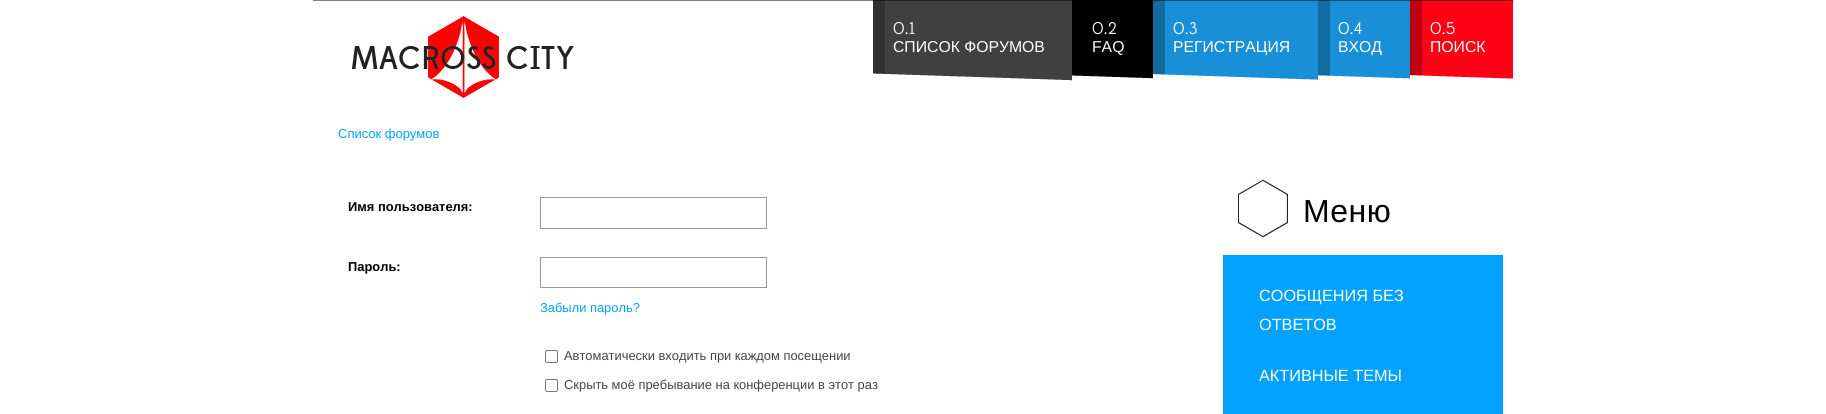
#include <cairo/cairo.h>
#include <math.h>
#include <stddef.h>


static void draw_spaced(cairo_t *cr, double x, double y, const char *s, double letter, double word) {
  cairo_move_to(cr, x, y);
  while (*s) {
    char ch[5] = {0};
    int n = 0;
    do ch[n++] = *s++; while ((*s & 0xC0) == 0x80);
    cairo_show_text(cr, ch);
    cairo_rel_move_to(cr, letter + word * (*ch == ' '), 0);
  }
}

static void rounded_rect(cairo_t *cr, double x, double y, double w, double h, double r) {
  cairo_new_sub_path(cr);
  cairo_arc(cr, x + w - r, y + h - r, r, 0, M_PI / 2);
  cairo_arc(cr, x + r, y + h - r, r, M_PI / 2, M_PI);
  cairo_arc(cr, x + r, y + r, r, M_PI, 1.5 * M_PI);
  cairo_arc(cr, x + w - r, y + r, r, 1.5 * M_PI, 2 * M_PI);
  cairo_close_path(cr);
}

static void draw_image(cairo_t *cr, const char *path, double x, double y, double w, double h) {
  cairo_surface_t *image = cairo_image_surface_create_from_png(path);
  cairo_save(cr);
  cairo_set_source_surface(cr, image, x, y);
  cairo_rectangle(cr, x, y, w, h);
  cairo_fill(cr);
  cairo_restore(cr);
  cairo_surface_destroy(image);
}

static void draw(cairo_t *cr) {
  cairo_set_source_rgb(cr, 1, 1, 1);
  cairo_paint(cr);
  cairo_set_source_rgb(cr, 128 / 255.0, 128 / 255.0, 128 / 255.0);
  cairo_rectangle(cr, 313, 0, 560, 1);
  cairo_fill(cr);
  draw_image(cr, "images/1.png", 352, 16, 222, 82);
  cairo_set_source_rgb(cr, 64 / 255.0, 64 / 255.0, 64 / 255.0);
  cairo_rectangle(cr, 885, 1, 187, 80);
  cairo_fill(cr);
  cairo_set_source_rgb(cr, 32 / 255.0, 32 / 255.0, 32 / 255.0);
  cairo_rectangle(cr, 885, 0, 187, 1);
  cairo_fill(cr);
  cairo_set_source_rgb(cr, 48 / 255.0, 48 / 255.0, 48 / 255.0);
  cairo_rectangle(cr, 873, 1, 12, 73);
  cairo_fill(cr);
  cairo_set_source_rgb(cr, 24 / 255.0, 24 / 255.0, 24 / 255.0);
  cairo_rectangle(cr, 873, 0, 12, 1);
  cairo_fill(cr);
  draw_image(cr, "images/2.png", 873, 73, 199, 9);
  cairo_set_source_rgb(cr, 0, 0, 0);
  cairo_rectangle(cr, 1072, 0, 81, 79);
  cairo_fill(cr);
  draw_image(cr, "images/3.png", 1072, 75, 81, 7);
  cairo_set_source_rgb(cr, 24 / 255.0, 143 / 255.0, 214 / 255.0);
  cairo_rectangle(cr, 1165, 1, 153, 79);
  cairo_fill(cr);
  cairo_set_source_rgb(cr, 12 / 255.0, 72 / 255.0, 107 / 255.0);
  cairo_rectangle(cr, 1165, 0, 153, 1);
  cairo_fill(cr);
  cairo_set_source_rgb(cr, 18 / 255.0, 107 / 255.0, 161 / 255.0);
  cairo_rectangle(cr, 1153, 1, 12, 74);
  cairo_fill(cr);
  cairo_set_source_rgb(cr, 9 / 255.0, 54 / 255.0, 81 / 255.0);
  cairo_rectangle(cr, 1153, 0, 12, 1);
  cairo_fill(cr);
  draw_image(cr, "images/4.png", 1153, 74, 165, 8);
  cairo_set_source_rgb(cr, 24 / 255.0, 143 / 255.0, 214 / 255.0);
  cairo_rectangle(cr, 1330, 1, 80, 78);
  cairo_fill(cr);
  cairo_set_source_rgb(cr, 12 / 255.0, 72 / 255.0, 107 / 255.0);
  cairo_rectangle(cr, 1330, 0, 80, 1);
  cairo_fill(cr);
  cairo_set_source_rgb(cr, 18 / 255.0, 107 / 255.0, 161 / 255.0);
  cairo_rectangle(cr, 1318, 1, 12, 75);
  cairo_fill(cr);
  cairo_set_source_rgb(cr, 9 / 255.0, 54 / 255.0, 81 / 255.0);
  cairo_rectangle(cr, 1318, 0, 12, 1);
  cairo_fill(cr);
  draw_image(cr, "images/5.png", 1318, 75, 92, 7);
  cairo_set_source_rgb(cr, 1, 1 / 255.0, 23 / 255.0);
  cairo_rectangle(cr, 1422, 1, 91, 78);
  cairo_fill(cr);
  cairo_set_source_rgb(cr, 128 / 255.0, 1 / 255.0, 12 / 255.0);
  cairo_rectangle(cr, 1422, 0, 91, 1);
  cairo_fill(cr);
  cairo_set_source_rgb(cr, 191 / 255.0, 1 / 255.0, 17 / 255.0);
  cairo_rectangle(cr, 1410, 1, 12, 75);
  cairo_fill(cr);
  cairo_set_source_rgb(cr, 96 / 255.0, 1 / 255.0, 9 / 255.0);
  cairo_rectangle(cr, 1410, 0, 12, 1);
  cairo_fill(cr);
  draw_image(cr, "images/6.png", 1410, 75, 103, 7);
  cairo_rectangle(cr, 540.5, 197.5, 226, 31);
  cairo_set_source_rgb(cr, 153 / 255.0, 153 / 255.0, 153 / 255.0);
  cairo_set_line_width(cr, 1);
  cairo_stroke(cr);
  cairo_rectangle(cr, 540.5, 257.5, 226, 30);
  cairo_stroke(cr);
  rounded_rect(cr, 545.5, 350.5, 12, 12, 1.5);
  cairo_set_source_rgb(cr, 118 / 255.0, 118 / 255.0, 118 / 255.0);
  cairo_stroke(cr);
  rounded_rect(cr, 545.5, 379.5, 12, 12, 1.5);
  cairo_stroke(cr);
  draw_image(cr, "images/7.png", 1238, 179, 50, 58);
  cairo_set_source_rgb(cr, 0, 161 / 255.0, 1);
  cairo_rectangle(cr, 1223, 255, 280, 159);
  cairo_fill(cr);
  cairo_select_font_face(cr, "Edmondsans", CAIRO_FONT_SLANT_NORMAL, CAIRO_FONT_WEIGHT_NORMAL);
  cairo_set_font_size(cr, 17);
  cairo_set_source_rgb(cr, 1, 1, 1);
  cairo_move_to(cr, 893, 34);
  cairo_show_text(cr, "0.1");
  cairo_select_font_face(cr, "Liberation Sans", CAIRO_FONT_SLANT_NORMAL, CAIRO_FONT_WEIGHT_NORMAL);
  cairo_set_font_size(cr, 15.75);
  cairo_move_to(cr, 893, 52);
  cairo_show_text(cr, "СПИСОК ФОРУМОВ");
  cairo_select_font_face(cr, "Edmondsans", CAIRO_FONT_SLANT_NORMAL, CAIRO_FONT_WEIGHT_NORMAL);
  cairo_set_font_size(cr, 17);
  cairo_move_to(cr, 1092, 34);
  cairo_show_text(cr, "0.2");
  cairo_select_font_face(cr, "Liberation Sans", CAIRO_FONT_SLANT_NORMAL, CAIRO_FONT_WEIGHT_NORMAL);
  cairo_set_font_size(cr, 15.75);
  cairo_move_to(cr, 1092, 52);
  cairo_show_text(cr, "FAQ");
  cairo_select_font_face(cr, "Edmondsans", CAIRO_FONT_SLANT_NORMAL, CAIRO_FONT_WEIGHT_NORMAL);
  cairo_set_font_size(cr, 17);
  cairo_move_to(cr, 1173, 34);
  cairo_show_text(cr, "0.3");
  cairo_select_font_face(cr, "Liberation Sans", CAIRO_FONT_SLANT_NORMAL, CAIRO_FONT_WEIGHT_NORMAL);
  cairo_set_font_size(cr, 15.75);
  cairo_move_to(cr, 1173, 52);
  cairo_show_text(cr, "РЕГИСТРАЦИЯ");
  cairo_select_font_face(cr, "Edmondsans", CAIRO_FONT_SLANT_NORMAL, CAIRO_FONT_WEIGHT_NORMAL);
  cairo_set_font_size(cr, 17);
  cairo_move_to(cr, 1338, 34);
  cairo_show_text(cr, "0.4");
  cairo_select_font_face(cr, "Liberation Sans", CAIRO_FONT_SLANT_NORMAL, CAIRO_FONT_WEIGHT_NORMAL);
  cairo_set_font_size(cr, 15.75);
  cairo_move_to(cr, 1338, 52);
  cairo_show_text(cr, "ВХОД");
  cairo_select_font_face(cr, "Edmondsans", CAIRO_FONT_SLANT_NORMAL, CAIRO_FONT_WEIGHT_NORMAL);
  cairo_set_font_size(cr, 17);
  cairo_move_to(cr, 1430, 34);
  cairo_show_text(cr, "0.5");
  cairo_select_font_face(cr, "Liberation Sans", CAIRO_FONT_SLANT_NORMAL, CAIRO_FONT_WEIGHT_NORMAL);
  cairo_set_font_size(cr, 15.75);
  cairo_move_to(cr, 1430, 52);
  cairo_show_text(cr, "ПОИСК");
  cairo_set_font_size(cr, 13);
  cairo_set_source_rgb(cr, 0, 161 / 255.0, 1);
  cairo_move_to(cr, 338, 138);
  cairo_show_text(cr, "Список форумов");
  cairo_select_font_face(cr, "Liberation Sans", CAIRO_FONT_SLANT_NORMAL, CAIRO_FONT_WEIGHT_BOLD);
  cairo_set_font_size(cr, 12.9);
  cairo_set_source_rgb(cr, 0, 0, 0);
  cairo_move_to(cr, 348, 211);
  cairo_show_text(cr, "Имя пользователя:");
  cairo_move_to(cr, 348, 271);
  cairo_show_text(cr, "Пароль:");
  cairo_select_font_face(cr, "Liberation Sans", CAIRO_FONT_SLANT_NORMAL, CAIRO_FONT_WEIGHT_NORMAL);
  cairo_set_source_rgb(cr, 0, 161 / 255.0, 1);
  cairo_move_to(cr, 540, 312);
  cairo_show_text(cr, "Забыли пароль?");
  cairo_set_source_rgb(cr, 68 / 255.0, 68 / 255.0, 68 / 255.0);
  cairo_move_to(cr, 564, 360);
  cairo_show_text(cr, "Автоматически входить при каждом посещении");
  cairo_move_to(cr, 564, 389);
  cairo_show_text(cr, "Скрыть моё пребывание на конференции в этот раз");
  cairo_set_font_size(cr, 32);
  cairo_set_source_rgb(cr, 0, 0, 0);
  draw_spaced(cr, 1303, 222, "Меню", 0.5, 0);
  cairo_set_font_size(cr, 16.25);
  cairo_set_source_rgb(cr, 1, 1, 1);
  cairo_move_to(cr, 1259, 301);
  cairo_show_text(cr, "СООБЩЕНИЯ БЕЗ");
  cairo_move_to(cr, 1259, 330);
  cairo_show_text(cr, "ОТВЕТОВ");
  cairo_move_to(cr, 1259, 381);
  cairo_show_text(cr, "АКТИВНЫЕ ТЕМЫ");
}

int main(void) {
  cairo_surface_t *surface = cairo_image_surface_create(CAIRO_FORMAT_RGB24, 1826, 414);
  cairo_t *cr = cairo_create(surface);
  cairo_font_options_t *options = cairo_font_options_create();
  cairo_font_options_set_hint_metrics(options, CAIRO_HINT_METRICS_OFF);
  cairo_font_options_set_hint_style(options, CAIRO_HINT_STYLE_NONE);
  cairo_set_font_options(cr, options);
  cairo_set_miter_limit(cr, 4);
  draw(cr);
  cairo_surface_write_to_png(surface, "out.png");
  cairo_font_options_destroy(options);
  cairo_destroy(cr);
  cairo_surface_destroy(surface);
  return 0;
}
